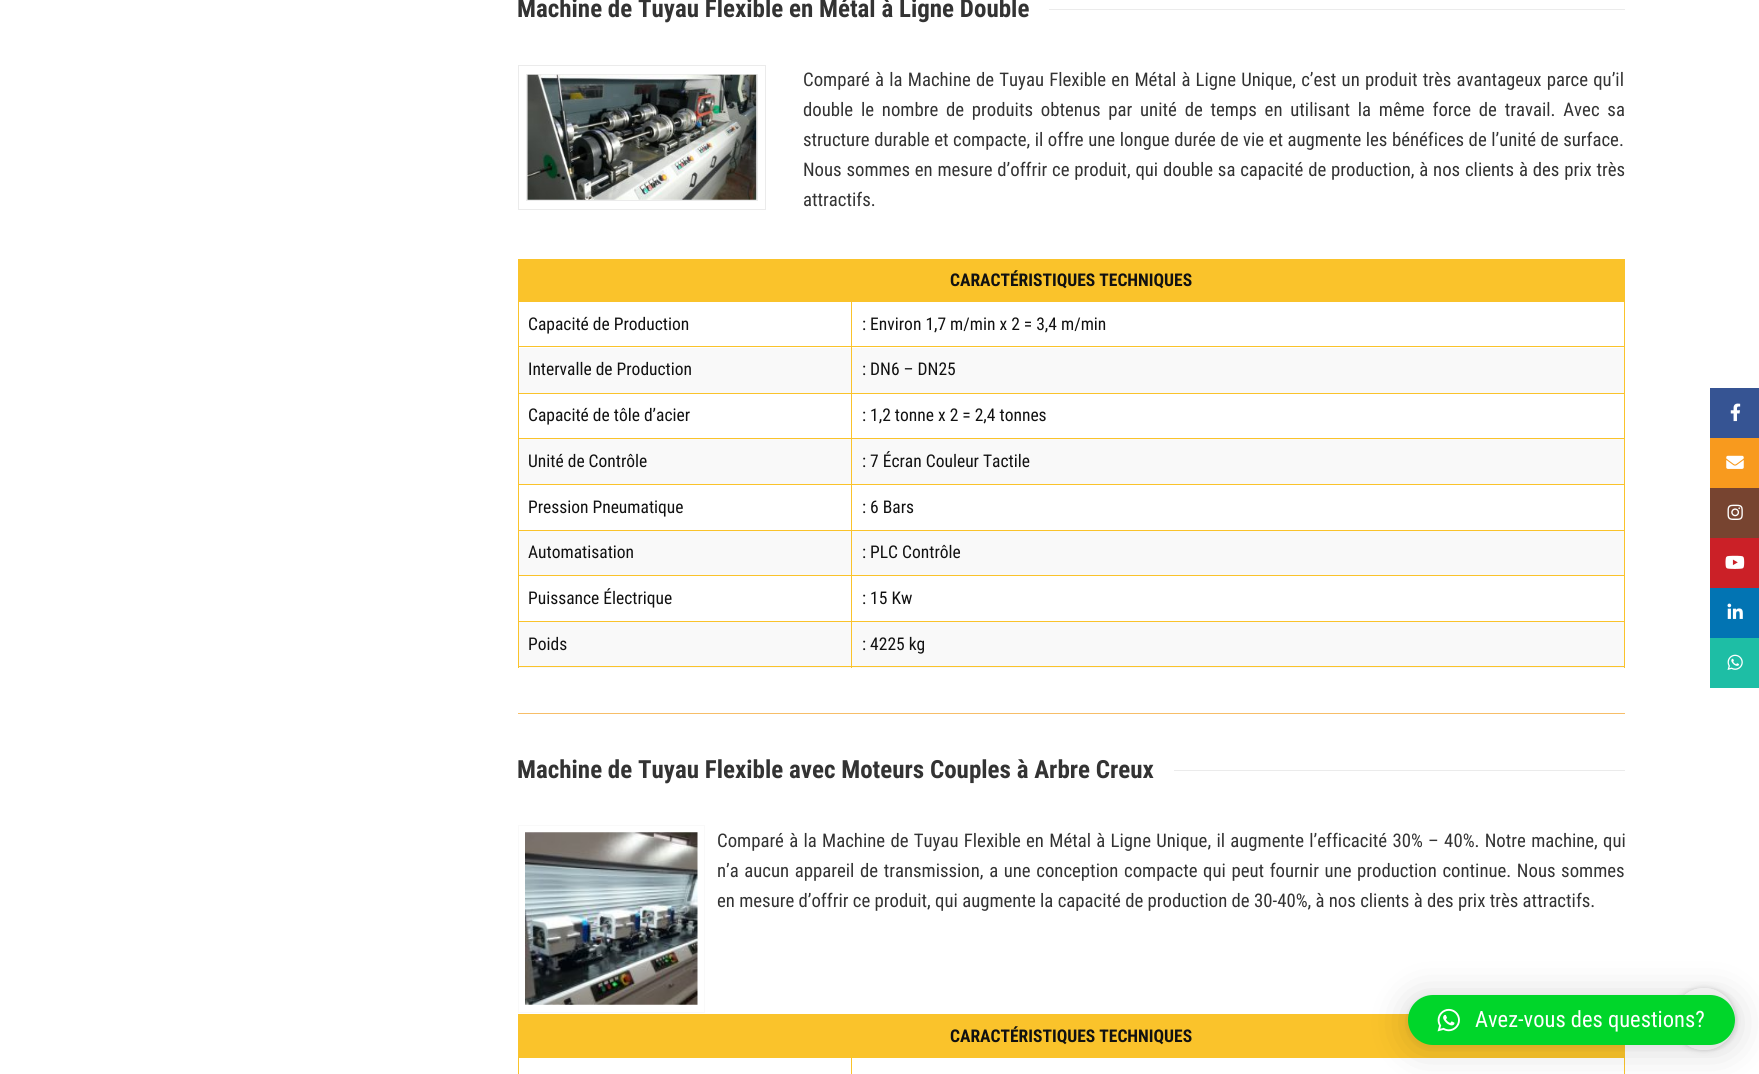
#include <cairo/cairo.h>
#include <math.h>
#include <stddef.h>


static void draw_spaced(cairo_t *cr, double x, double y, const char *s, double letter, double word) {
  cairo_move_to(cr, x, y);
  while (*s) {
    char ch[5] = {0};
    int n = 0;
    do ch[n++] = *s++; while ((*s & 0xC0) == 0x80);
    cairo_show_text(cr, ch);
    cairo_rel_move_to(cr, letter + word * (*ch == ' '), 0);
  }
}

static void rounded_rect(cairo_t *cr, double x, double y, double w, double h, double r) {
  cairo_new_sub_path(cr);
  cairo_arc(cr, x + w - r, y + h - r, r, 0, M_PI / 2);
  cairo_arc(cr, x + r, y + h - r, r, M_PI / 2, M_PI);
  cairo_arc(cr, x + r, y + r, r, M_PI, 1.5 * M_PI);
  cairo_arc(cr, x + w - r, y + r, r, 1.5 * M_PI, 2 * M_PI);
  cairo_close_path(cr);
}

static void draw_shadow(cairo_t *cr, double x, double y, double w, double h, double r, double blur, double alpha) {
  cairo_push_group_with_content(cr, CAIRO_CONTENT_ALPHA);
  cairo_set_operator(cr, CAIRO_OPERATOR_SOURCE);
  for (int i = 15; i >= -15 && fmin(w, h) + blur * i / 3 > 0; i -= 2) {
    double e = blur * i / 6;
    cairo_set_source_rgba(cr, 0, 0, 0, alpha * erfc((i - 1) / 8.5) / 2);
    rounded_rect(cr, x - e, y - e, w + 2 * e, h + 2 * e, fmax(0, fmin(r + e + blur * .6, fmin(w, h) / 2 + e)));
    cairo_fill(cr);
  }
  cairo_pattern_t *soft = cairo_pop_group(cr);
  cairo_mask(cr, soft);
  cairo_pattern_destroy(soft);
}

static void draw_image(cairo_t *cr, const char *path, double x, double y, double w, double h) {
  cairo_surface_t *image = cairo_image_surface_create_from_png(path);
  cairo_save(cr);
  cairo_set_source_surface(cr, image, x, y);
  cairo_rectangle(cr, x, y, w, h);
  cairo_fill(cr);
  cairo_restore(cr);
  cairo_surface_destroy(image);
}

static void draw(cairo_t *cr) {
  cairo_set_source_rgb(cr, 1, 1, 1);
  cairo_paint(cr);
  cairo_set_source_rgb(cr, 235 / 255.0, 235 / 255.0, 235 / 255.0);
  cairo_rectangle(cr, 1049, 9, 576, 1);
  cairo_fill(cr);
  cairo_rectangle(cr, 518.5, 65.5, 247, 144);
  cairo_set_line_width(cr, 1);
  cairo_stroke(cr);
  cairo_rectangle(cr, 526.5, 74.5, 231, 126);
  cairo_stroke(cr);
  draw_image(cr, "images/1.png", 527, 74, 230, 126);
  cairo_set_source_rgb(cr, 250 / 255.0, 195 / 255.0, 43 / 255.0);
  cairo_rectangle(cr, 518, 259, 1107, 43);
  cairo_fill(cr);
  cairo_rectangle(cr, 1624, 301, 1, 367);
  cairo_fill(cr);
  cairo_set_source_rgb(cr, 249 / 255.0, 249 / 255.0, 249 / 255.0);
  cairo_rectangle(cr, 519, 622, 332, 46);
  cairo_fill(cr);
  cairo_rectangle(cr, 852, 622, 772, 46);
  cairo_fill(cr);
  cairo_set_source_rgb(cr, 250 / 255.0, 195 / 255.0, 43 / 255.0);
  cairo_rectangle(cr, 518, 666, 1107, 1);
  cairo_fill(cr);
  cairo_rectangle(cr, 518, 301, 1, 367);
  cairo_fill(cr);
  cairo_rectangle(cr, 518, 346, 1107, 1);
  cairo_fill(cr);
  cairo_set_source_rgb(cr, 249 / 255.0, 249 / 255.0, 249 / 255.0);
  cairo_rectangle(cr, 519, 348, 332, 45);
  cairo_fill(cr);
  cairo_rectangle(cr, 852, 348, 772, 45);
  cairo_fill(cr);
  cairo_set_source_rgb(cr, 250 / 255.0, 195 / 255.0, 43 / 255.0);
  cairo_rectangle(cr, 518, 393, 1107, 1);
  cairo_fill(cr);
  cairo_rectangle(cr, 518, 438, 1107, 1);
  cairo_fill(cr);
  cairo_set_source_rgb(cr, 249 / 255.0, 249 / 255.0, 249 / 255.0);
  cairo_rectangle(cr, 519, 439, 332, 45);
  cairo_fill(cr);
  cairo_rectangle(cr, 852, 439, 772, 45);
  cairo_fill(cr);
  cairo_set_source_rgb(cr, 250 / 255.0, 195 / 255.0, 43 / 255.0);
  cairo_rectangle(cr, 518, 484, 1107, 1);
  cairo_fill(cr);
  cairo_rectangle(cr, 518, 530, 1107, 1);
  cairo_fill(cr);
  cairo_set_source_rgb(cr, 249 / 255.0, 249 / 255.0, 249 / 255.0);
  cairo_rectangle(cr, 519, 531, 332, 44);
  cairo_fill(cr);
  cairo_rectangle(cr, 852, 531, 772, 44);
  cairo_fill(cr);
  cairo_set_source_rgb(cr, 250 / 255.0, 195 / 255.0, 43 / 255.0);
  cairo_rectangle(cr, 518, 575, 1107, 1);
  cairo_fill(cr);
  cairo_rectangle(cr, 518, 621, 1107, 1);
  cairo_fill(cr);
  cairo_rectangle(cr, 851, 301, 1, 367);
  cairo_fill(cr);
  cairo_set_source_rgb(cr, 247 / 255.0, 190 / 255.0, 104 / 255.0);
  cairo_rectangle(cr, 518, 713, 1107, 1);
  cairo_fill(cr);
  cairo_set_source_rgb(cr, 235 / 255.0, 235 / 255.0, 235 / 255.0);
  cairo_rectangle(cr, 1174, 770, 451, 1);
  cairo_fill(cr);
  cairo_rectangle(cr, 518.5, 825.5, 186, 187);
  cairo_set_source_rgb(cr, 249 / 255.0, 249 / 255.0, 249 / 255.0);
  cairo_stroke(cr);
  draw_image(cr, "images/2.png", 525, 832, 173, 173);
  cairo_set_source_rgb(cr, 250 / 255.0, 195 / 255.0, 43 / 255.0);
  cairo_rectangle(cr, 518, 1014, 891, 1);
  cairo_fill(cr);
  cairo_rectangle(cr, 518, 1015, 1107, 43);
  cairo_fill(cr);
  cairo_rectangle(cr, 1624, 1056, 1, 18);
  cairo_fill(cr);
  cairo_rectangle(cr, 518, 1056, 1, 18);
  cairo_fill(cr);
  cairo_rectangle(cr, 851, 1056, 1, 18);
  cairo_fill(cr);
  cairo_set_source_rgb(cr, 54 / 255.0, 84 / 255.0, 147 / 255.0);
  cairo_rectangle(cr, 1710, 388, 49, 50);
  cairo_fill(cr);
  draw_image(cr, "images/3.png", 1730, 403, 11, 19);
  cairo_set_source_rgb(cr, 248 / 255.0, 154 / 255.0, 30 / 255.0);
  cairo_rectangle(cr, 1710, 438, 49, 50);
  cairo_fill(cr);
  draw_image(cr, "images/4.png", 1726, 455, 18, 14);
  cairo_set_source_rgb(cr, 119 / 255.0, 68 / 255.0, 48 / 255.0);
  cairo_rectangle(cr, 1710, 488, 49, 50);
  cairo_fill(cr);
  draw_image(cr, "images/5.png", 1727, 504, 16, 16);
  cairo_set_source_rgb(cr, 203 / 255.0, 32 / 255.0, 39 / 255.0);
  cairo_rectangle(cr, 1710, 538, 49, 50);
  cairo_fill(cr);
  draw_image(cr, "images/6.png", 1725, 555, 20, 14);
  cairo_set_source_rgb(cr, 2 / 255.0, 116 / 255.0, 179 / 255.0);
  cairo_rectangle(cr, 1710, 588, 49, 50);
  cairo_fill(cr);
  draw_image(cr, "images/7.png", 1727, 603, 16, 16);
  cairo_set_source_rgb(cr, 30 / 255.0, 190 / 255.0, 165 / 255.0);
  cairo_rectangle(cr, 1710, 638, 49, 50);
  cairo_fill(cr);
  draw_image(cr, "images/8.png", 1727, 654, 16, 16);
  cairo_save(cr);
  cairo_set_fill_rule(cr, CAIRO_FILL_RULE_EVEN_ODD);
  cairo_new_path(cr);
  cairo_move_to(cr, 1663, 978);
  cairo_line_to(cr, 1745, 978);
  cairo_line_to(cr, 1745, 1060);
  cairo_line_to(cr, 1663, 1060);
  cairo_close_path(cr);
  cairo_move_to(cr, 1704, 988);
  cairo_curve_to(cr, 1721, 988, 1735, 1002, 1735, 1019);
  cairo_curve_to(cr, 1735, 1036, 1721, 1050, 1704, 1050);
  cairo_curve_to(cr, 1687, 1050, 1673, 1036, 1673, 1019);
  cairo_curve_to(cr, 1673, 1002, 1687, 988, 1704, 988);
  cairo_close_path(cr);
  cairo_clip(cr);
  cairo_set_source_rgb(cr, 0, 0, 0);
  draw_shadow(cr, 1673, 988, 62, 62, 31, 3, 0.17);
  cairo_restore(cr);
  cairo_set_source_rgba(cr, 1, 1, 1, 0.9);
  cairo_arc(cr, 1704, 1019, 31, 0, 2 * M_PI);
  cairo_fill(cr);
  cairo_set_source_rgb(cr, 0, 0, 0);
  draw_shadow(cr, 1408, 998, 327, 50, 25, 20, 0.16);
  draw_shadow(cr, 1408, 996, 327, 50, 25, 4, 0.06);
  cairo_set_source_rgb(cr, 0, 214 / 255.0, 42 / 255.0);
  rounded_rect(cr, 1408, 995, 327, 50, 25);
  cairo_fill(cr);
  draw_image(cr, "images/9.png", 1437, 1008, 23, 24);
  cairo_select_font_face(cr, "Roboto Condensed", CAIRO_FONT_SLANT_NORMAL, CAIRO_FONT_WEIGHT_BOLD);
  cairo_set_font_size(cr, 25);
  cairo_set_source_rgb(cr, 51 / 255.0, 51 / 255.0, 51 / 255.0);
  cairo_move_to(cr, 517, 17);
  cairo_show_text(cr, "Machine de Tuyau Flexible en Métal à Ligne Double");
  cairo_select_font_face(cr, "Roboto Condensed", CAIRO_FONT_SLANT_NORMAL, CAIRO_FONT_WEIGHT_NORMAL);
  cairo_set_font_size(cr, 18.75);
  draw_spaced(cr, 803, 86, "Comparé à la Machine de Tuyau Flexible en Métal à Ligne Unique, c’est un produit très avantageux parce qu’il", 0, 0.9);
  draw_spaced(cr, 803, 116, "double le nombre de produits obtenus par unité de temps en utilisant la même force de travail. Avec sa", 0, 3.5);
  draw_spaced(cr, 803, 146, "structure durable et compacte, il offre une longue durée de vie et augmente les bénéfices de l’unité de surface.", 0, 0.25);
  draw_spaced(cr, 803, 176, "Nous sommes en mesure d’offrir ce produit, qui double sa capacité de production, à nos clients à des prix très", 0, 0.5);
  cairo_move_to(cr, 803, 206);
  cairo_show_text(cr, "attractifs.");
  cairo_select_font_face(cr, "Roboto Condensed", CAIRO_FONT_SLANT_NORMAL, CAIRO_FONT_WEIGHT_BOLD);
  cairo_set_font_size(cr, 17.5);
  cairo_set_source_rgb(cr, 17 / 255.0, 17 / 255.0, 17 / 255.0);
  cairo_move_to(cr, 950, 286);
  cairo_show_text(cr, "CARACTÉRISTIQUES TECHNIQUES");
  cairo_select_font_face(cr, "Roboto Condensed", CAIRO_FONT_SLANT_NORMAL, CAIRO_FONT_WEIGHT_NORMAL);
  cairo_move_to(cr, 528, 330);
  cairo_show_text(cr, "Capacité de Production");
  cairo_move_to(cr, 862, 330);
  cairo_show_text(cr, ": Environ 1,7 m/min x 2 = 3,4 m/min");
  cairo_move_to(cr, 528, 375);
  cairo_show_text(cr, "Intervalle de Production");
  cairo_move_to(cr, 862, 375);
  cairo_show_text(cr, ": DN6 – DN25");
  cairo_move_to(cr, 528, 421);
  cairo_show_text(cr, "Capacité de tôle d’acier");
  cairo_move_to(cr, 862, 421);
  cairo_show_text(cr, ": 1,2 tonne x 2 = 2,4 tonnes");
  cairo_move_to(cr, 528, 467);
  cairo_show_text(cr, "Unité de Contrôle");
  cairo_move_to(cr, 862, 467);
  cairo_show_text(cr, ": 7 Écran Couleur Tactile");
  cairo_move_to(cr, 528, 513);
  cairo_show_text(cr, "Pression Pneumatique");
  cairo_move_to(cr, 862, 513);
  cairo_show_text(cr, ": 6 Bars");
  cairo_move_to(cr, 528, 558);
  cairo_show_text(cr, "Automatisation");
  cairo_move_to(cr, 862, 558);
  cairo_show_text(cr, ": PLC Contrôle");
  cairo_move_to(cr, 528, 604);
  cairo_show_text(cr, "Puissance Électrique");
  cairo_move_to(cr, 862, 604);
  cairo_show_text(cr, ": 15 Kw");
  cairo_move_to(cr, 528, 650);
  cairo_show_text(cr, "Poids");
  cairo_move_to(cr, 862, 650);
  cairo_show_text(cr, ": 4225 kg");
  cairo_select_font_face(cr, "Roboto Condensed", CAIRO_FONT_SLANT_NORMAL, CAIRO_FONT_WEIGHT_BOLD);
  cairo_set_font_size(cr, 25);
  cairo_set_source_rgb(cr, 51 / 255.0, 51 / 255.0, 51 / 255.0);
  cairo_move_to(cr, 517, 778);
  cairo_show_text(cr, "Machine de Tuyau Flexible avec Moteurs Couples à Arbre Creux");
  cairo_select_font_face(cr, "Roboto Condensed", CAIRO_FONT_SLANT_NORMAL, CAIRO_FONT_WEIGHT_NORMAL);
  cairo_set_font_size(cr, 18.75);
  draw_spaced(cr, 717, 847, "Comparé à la Machine de Tuyau Flexible en Métal à Ligne Unique, il augmente l’efficacité 30% – 40%. Notre machine, qui", 0, 1);
  draw_spaced(cr, 717, 877, "n’a aucun appareil de transmission, a une conception compacte qui peut fournir une production continue. Nous sommes", 0, 1.3);
  cairo_move_to(cr, 717, 907);
  cairo_show_text(cr, "en mesure d’offrir ce produit, qui augmente la capacité de production de 30-40%, à nos clients à des prix très attractifs.");
  cairo_select_font_face(cr, "Roboto Condensed", CAIRO_FONT_SLANT_NORMAL, CAIRO_FONT_WEIGHT_BOLD);
  cairo_set_font_size(cr, 17.5);
  cairo_set_source_rgb(cr, 17 / 255.0, 17 / 255.0, 17 / 255.0);
  cairo_move_to(cr, 950, 1042);
  cairo_show_text(cr, "CARACTÉRISTIQUES TECHNIQUES");
  cairo_select_font_face(cr, "Roboto Condensed", CAIRO_FONT_SLANT_NORMAL, CAIRO_FONT_WEIGHT_NORMAL);
  cairo_set_font_size(cr, 22.5);
  cairo_set_source_rgb(cr, 1, 1, 1);
  cairo_move_to(cr, 1475, 1027);
  cairo_show_text(cr, "Avez-vous des questions?");
}

int main(void) {
  cairo_surface_t *surface = cairo_image_surface_create(CAIRO_FORMAT_RGB24, 1759, 1074);
  cairo_t *cr = cairo_create(surface);
  cairo_font_options_t *options = cairo_font_options_create();
  cairo_font_options_set_hint_metrics(options, CAIRO_HINT_METRICS_OFF);
  cairo_font_options_set_hint_style(options, CAIRO_HINT_STYLE_NONE);
  cairo_set_font_options(cr, options);
  cairo_set_miter_limit(cr, 4);
  draw(cr);
  cairo_surface_write_to_png(surface, "out.png");
  cairo_font_options_destroy(options);
  cairo_destroy(cr);
  cairo_surface_destroy(surface);
  return 0;
}
